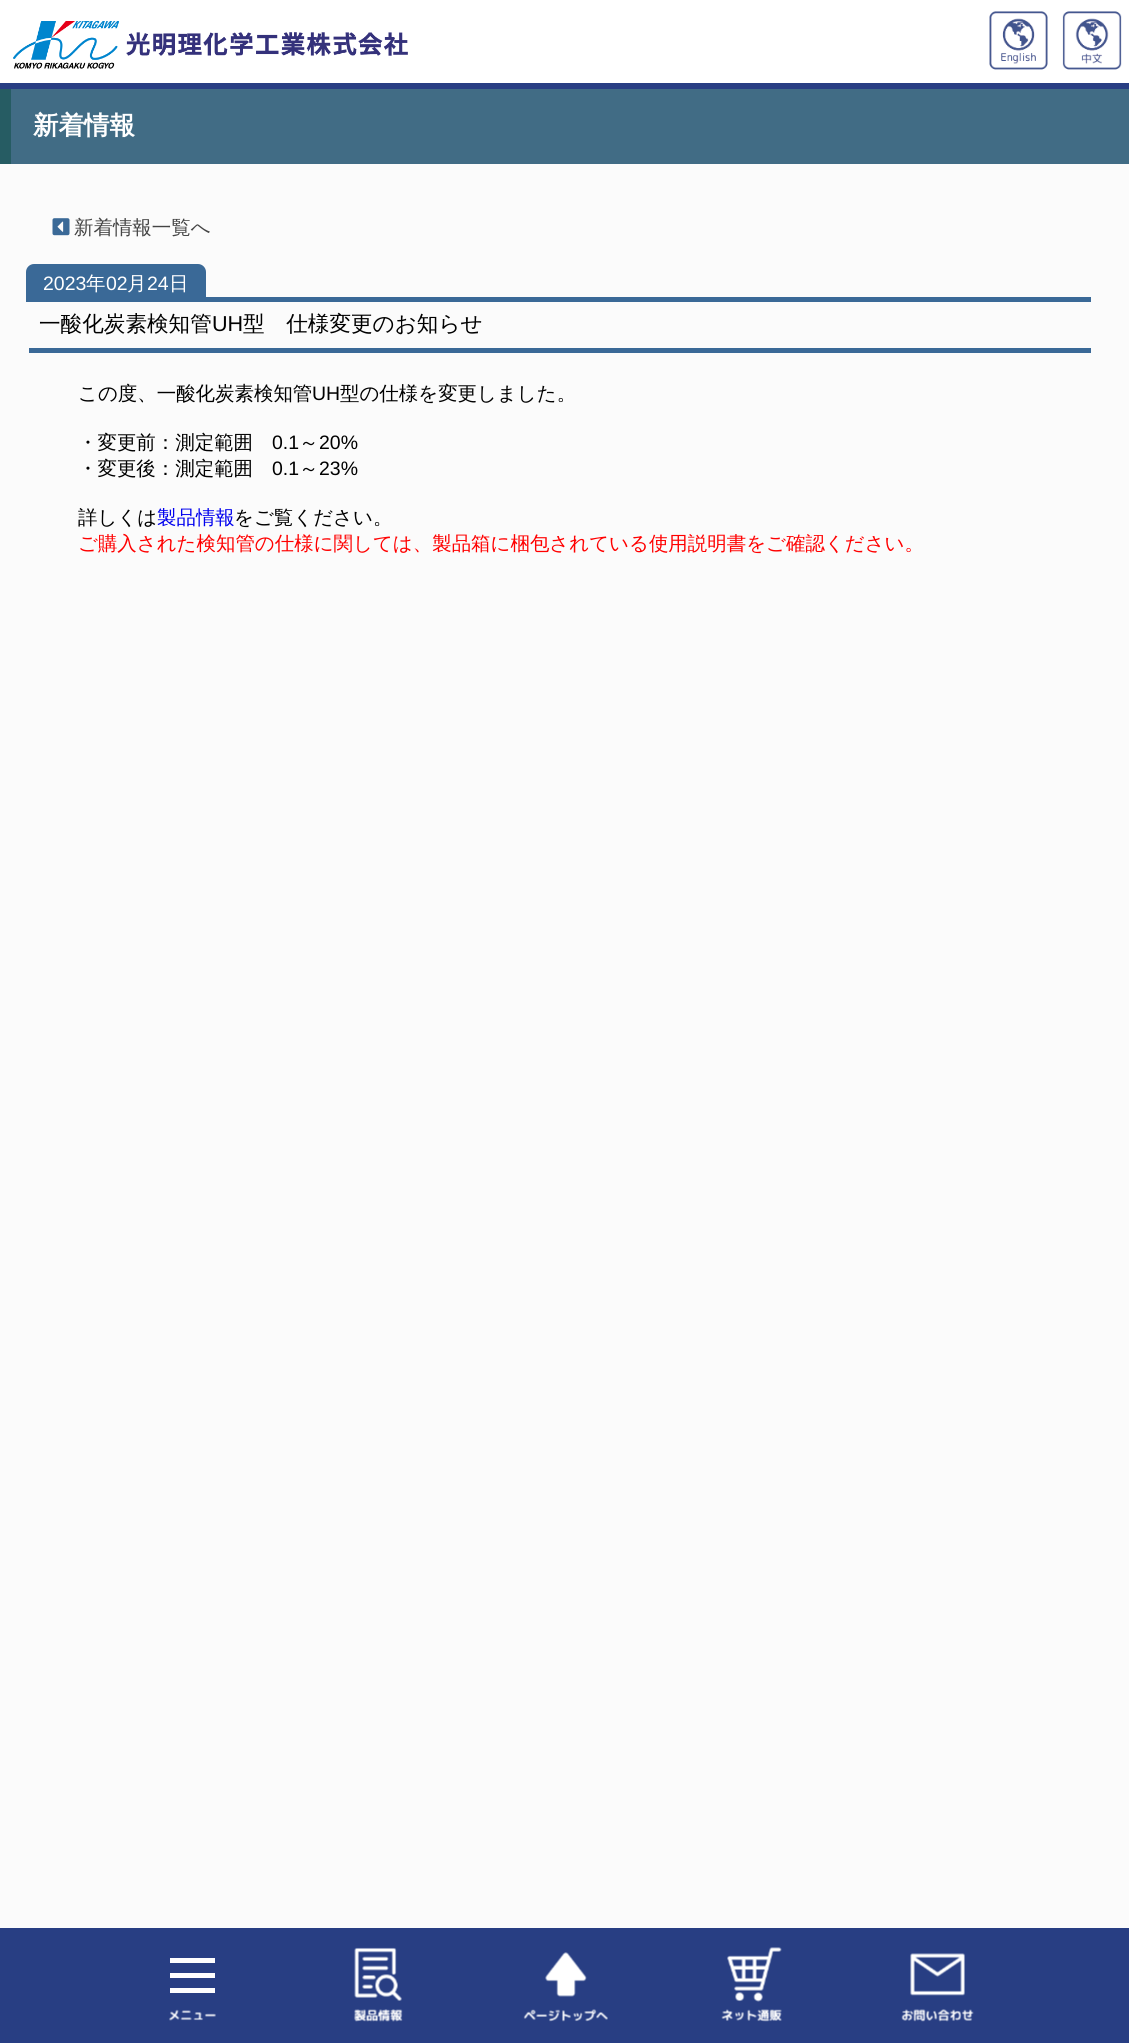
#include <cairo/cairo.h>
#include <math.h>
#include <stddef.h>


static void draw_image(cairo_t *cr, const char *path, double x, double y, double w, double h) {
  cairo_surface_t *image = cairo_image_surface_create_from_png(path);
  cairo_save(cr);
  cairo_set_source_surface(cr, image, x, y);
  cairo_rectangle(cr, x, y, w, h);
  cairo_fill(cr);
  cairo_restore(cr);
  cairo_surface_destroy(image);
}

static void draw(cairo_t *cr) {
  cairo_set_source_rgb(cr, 251 / 255.0, 251 / 255.0, 251 / 255.0);
  cairo_paint(cr);
  cairo_set_source_rgb(cr, 1, 1, 1);
  cairo_rectangle(cr, 0, 0, 1129, 83);
  cairo_fill(cr);
  cairo_set_source_rgb(cr, 40 / 255.0, 62 / 255.0, 131 / 255.0);
  cairo_rectangle(cr, 0, 83, 1129, 6);
  cairo_fill(cr);
  draw_image(cr, "images/1.png", 13, 20, 395, 49);
  draw_image(cr, "images/2.png", 989, 11, 59, 59);
  draw_image(cr, "images/3.png", 1062, 11, 60, 59);
  cairo_set_source_rgb(cr, 65 / 255.0, 108 / 255.0, 133 / 255.0);
  cairo_rectangle(cr, 11, 89, 1118, 75);
  cairo_fill(cr);
  cairo_set_source_rgb(cr, 38 / 255.0, 92 / 255.0, 99 / 255.0);
  cairo_rectangle(cr, 0, 89, 11, 75);
  cairo_fill(cr);
  draw_image(cr, "images/4.png", 52, 218, 18, 18);
  cairo_set_source_rgb(cr, 58 / 255.0, 105 / 255.0, 151 / 255.0);
  cairo_new_path(cr);
  cairo_move_to(cr, 34, 265.5);
  cairo_line_to(cr, 198, 265.5);
  cairo_curve_to(cr, 201.5, 265.5, 204.5, 268.5, 204.5, 272);
  cairo_line_to(cr, 204.5, 300.5);
  cairo_line_to(cr, 27.5, 300.5);
  cairo_line_to(cr, 27.5, 272);
  cairo_curve_to(cr, 27.5, 268.5, 30.5, 265.5, 34, 265.5);
  cairo_close_path(cr);
  cairo_fill_preserve(cr);
  cairo_set_line_width(cr, 3);
  cairo_stroke(cr);
  cairo_rectangle(cr, 206, 297, 885, 5);
  cairo_fill(cr);
  cairo_rectangle(cr, 29, 348, 1062, 5);
  cairo_fill(cr);
  cairo_set_source_rgb(cr, 40 / 255.0, 62 / 255.0, 131 / 255.0);
  cairo_rectangle(cr, 0, 1928, 1129, 115);
  cairo_fill(cr);
  draw_image(cr, "images/5.png", 169, 2009, 47, 12);
  draw_image(cr, "images/6.png", 354, 1947, 49, 75);
  draw_image(cr, "images/7.png", 523, 1952, 85, 70);
  draw_image(cr, "images/8.png", 721, 1947, 61, 75);
  draw_image(cr, "images/9.png", 901, 1953, 73, 69);
  cairo_set_source_rgb(cr, 254 / 255.0, 254 / 255.0, 254 / 255.0);
  cairo_rectangle(cr, 170, 1973, 45, 5);
  cairo_fill(cr);
  cairo_rectangle(cr, 170, 1958, 45, 5);
  cairo_fill(cr);
  cairo_rectangle(cr, 170, 1988, 45, 5);
  cairo_fill(cr);
  cairo_select_font_face(cr, "WenQuanYi Zen Hei", CAIRO_FONT_SLANT_NORMAL, CAIRO_FONT_WEIGHT_BOLD);
  cairo_set_font_size(cr, 25.5);
  cairo_set_source_rgb(cr, 1, 1, 1);
  cairo_move_to(cr, 33, 134);
  cairo_show_text(cr, "新着情報");
  cairo_select_font_face(cr, "WenQuanYi Zen Hei Medium", CAIRO_FONT_SLANT_NORMAL, CAIRO_FONT_WEIGHT_NORMAL);
  cairo_set_font_size(cr, 19.45);
  cairo_set_source_rgb(cr, 68 / 255.0, 68 / 255.0, 68 / 255.0);
  cairo_move_to(cr, 74, 234);
  cairo_show_text(cr, "新着情報一覧へ");
  cairo_select_font_face(cr, "Liberation Sans", CAIRO_FONT_SLANT_NORMAL, CAIRO_FONT_WEIGHT_NORMAL);
  cairo_set_source_rgb(cr, 1, 1, 1);
  cairo_move_to(cr, 43, 290);
  cairo_show_text(cr, "2023");
  cairo_select_font_face(cr, "WenQuanYi Zen Hei Medium", CAIRO_FONT_SLANT_NORMAL, CAIRO_FONT_WEIGHT_NORMAL);
  cairo_move_to(cr, 86, 290);
  cairo_show_text(cr, "年");
  cairo_select_font_face(cr, "Liberation Sans", CAIRO_FONT_SLANT_NORMAL, CAIRO_FONT_WEIGHT_NORMAL);
  cairo_move_to(cr, 106, 290);
  cairo_show_text(cr, "02");
  cairo_select_font_face(cr, "WenQuanYi Zen Hei Medium", CAIRO_FONT_SLANT_NORMAL, CAIRO_FONT_WEIGHT_NORMAL);
  cairo_move_to(cr, 127, 290);
  cairo_show_text(cr, "月");
  cairo_select_font_face(cr, "Liberation Sans", CAIRO_FONT_SLANT_NORMAL, CAIRO_FONT_WEIGHT_NORMAL);
  cairo_move_to(cr, 147, 290);
  cairo_show_text(cr, "24");
  cairo_select_font_face(cr, "WenQuanYi Zen Hei Medium", CAIRO_FONT_SLANT_NORMAL, CAIRO_FONT_WEIGHT_NORMAL);
  cairo_move_to(cr, 169, 290);
  cairo_show_text(cr, "日");
  cairo_set_font_size(cr, 21.6);
  cairo_set_source_rgb(cr, 0, 0, 0);
  cairo_move_to(cr, 39, 331);
  cairo_show_text(cr, "一酸化炭素検知管");
  cairo_select_font_face(cr, "Liberation Sans", CAIRO_FONT_SLANT_NORMAL, CAIRO_FONT_WEIGHT_NORMAL);
  cairo_move_to(cr, 212, 331);
  cairo_show_text(cr, "UH");
  cairo_select_font_face(cr, "WenQuanYi Zen Hei Medium", CAIRO_FONT_SLANT_NORMAL, CAIRO_FONT_WEIGHT_NORMAL);
  cairo_move_to(cr, 243, 331);
  cairo_show_text(cr, "型　仕様変更のお知らせ");
  cairo_set_font_size(cr, 19.45);
  cairo_move_to(cr, 78, 400);
  cairo_show_text(cr, "この度、一酸化炭素検知管");
  cairo_select_font_face(cr, "Liberation Sans", CAIRO_FONT_SLANT_NORMAL, CAIRO_FONT_WEIGHT_NORMAL);
  cairo_move_to(cr, 312, 400);
  cairo_show_text(cr, "UH");
  cairo_select_font_face(cr, "WenQuanYi Zen Hei Medium", CAIRO_FONT_SLANT_NORMAL, CAIRO_FONT_WEIGHT_NORMAL);
  cairo_move_to(cr, 340, 400);
  cairo_show_text(cr, "型の仕様を変更しました。");
  cairo_move_to(cr, 78, 449);
  cairo_show_text(cr, "・変更前：測定範囲");
  cairo_select_font_face(cr, "Liberation Sans", CAIRO_FONT_SLANT_NORMAL, CAIRO_FONT_WEIGHT_NORMAL);
  cairo_move_to(cr, 272, 449);
  cairo_show_text(cr, "0.1");
  cairo_select_font_face(cr, "WenQuanYi Zen Hei Medium", CAIRO_FONT_SLANT_NORMAL, CAIRO_FONT_WEIGHT_NORMAL);
  cairo_move_to(cr, 299, 449);
  cairo_show_text(cr, "～");
  cairo_select_font_face(cr, "Liberation Sans", CAIRO_FONT_SLANT_NORMAL, CAIRO_FONT_WEIGHT_NORMAL);
  cairo_move_to(cr, 319, 449);
  cairo_show_text(cr, "20%");
  cairo_select_font_face(cr, "WenQuanYi Zen Hei Medium", CAIRO_FONT_SLANT_NORMAL, CAIRO_FONT_WEIGHT_NORMAL);
  cairo_move_to(cr, 78, 475);
  cairo_show_text(cr, "・変更後：測定範囲");
  cairo_select_font_face(cr, "Liberation Sans", CAIRO_FONT_SLANT_NORMAL, CAIRO_FONT_WEIGHT_NORMAL);
  cairo_move_to(cr, 272, 475);
  cairo_show_text(cr, "0.1");
  cairo_select_font_face(cr, "WenQuanYi Zen Hei Medium", CAIRO_FONT_SLANT_NORMAL, CAIRO_FONT_WEIGHT_NORMAL);
  cairo_move_to(cr, 299, 475);
  cairo_show_text(cr, "～");
  cairo_select_font_face(cr, "Liberation Sans", CAIRO_FONT_SLANT_NORMAL, CAIRO_FONT_WEIGHT_NORMAL);
  cairo_move_to(cr, 319, 475);
  cairo_show_text(cr, "23%");
  cairo_select_font_face(cr, "WenQuanYi Zen Hei Medium", CAIRO_FONT_SLANT_NORMAL, CAIRO_FONT_WEIGHT_NORMAL);
  cairo_move_to(cr, 78, 524);
  cairo_show_text(cr, "詳しくは");
  cairo_set_source_rgb(cr, 0, 0, 238 / 255.0);
  cairo_move_to(cr, 157, 524);
  cairo_show_text(cr, "製品情報");
  cairo_set_source_rgb(cr, 0, 0, 0);
  cairo_move_to(cr, 234, 524);
  cairo_show_text(cr, "をご覧ください。");
  cairo_set_source_rgb(cr, 1, 0, 0);
  cairo_move_to(cr, 78, 550);
  cairo_show_text(cr, "ご購入された検知管の仕様に関しては、製品箱に梱包されている使用説明書をご確認ください。");
}

int main(void) {
  cairo_surface_t *surface = cairo_image_surface_create(CAIRO_FORMAT_RGB24, 1129, 2043);
  cairo_t *cr = cairo_create(surface);
  cairo_font_options_t *options = cairo_font_options_create();
  cairo_font_options_set_hint_metrics(options, CAIRO_HINT_METRICS_OFF);
  cairo_font_options_set_hint_style(options, CAIRO_HINT_STYLE_NONE);
  cairo_set_font_options(cr, options);
  cairo_set_miter_limit(cr, 4);
  draw(cr);
  cairo_surface_write_to_png(surface, "out.png");
  cairo_font_options_destroy(options);
  cairo_destroy(cr);
  cairo_surface_destroy(surface);
  return 0;
}
